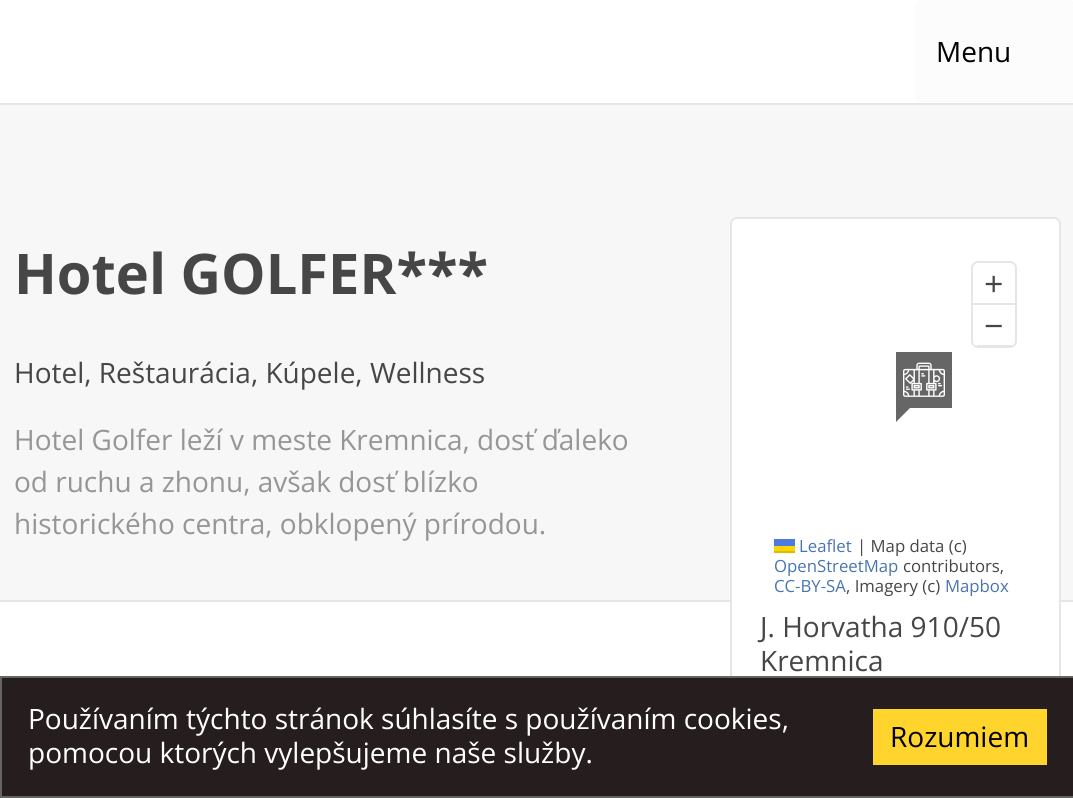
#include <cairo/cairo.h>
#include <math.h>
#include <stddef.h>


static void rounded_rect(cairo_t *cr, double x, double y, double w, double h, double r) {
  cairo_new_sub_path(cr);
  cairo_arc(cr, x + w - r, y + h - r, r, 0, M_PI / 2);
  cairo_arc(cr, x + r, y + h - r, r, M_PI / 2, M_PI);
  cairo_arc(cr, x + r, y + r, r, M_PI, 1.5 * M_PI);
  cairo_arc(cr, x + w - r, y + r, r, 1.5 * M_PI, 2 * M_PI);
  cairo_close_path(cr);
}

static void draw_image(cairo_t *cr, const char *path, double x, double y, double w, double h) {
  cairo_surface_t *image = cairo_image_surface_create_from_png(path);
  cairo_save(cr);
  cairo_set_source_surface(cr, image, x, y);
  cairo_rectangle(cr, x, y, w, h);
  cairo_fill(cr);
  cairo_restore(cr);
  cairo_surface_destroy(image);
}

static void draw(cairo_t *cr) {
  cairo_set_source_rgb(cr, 1, 1, 1);
  cairo_paint(cr);
  cairo_set_source_rgb(cr, 230 / 255.0, 230 / 255.0, 230 / 255.0);
  cairo_rectangle(cr, 0, 103, 1073, 2);
  cairo_fill(cr);
  cairo_set_source_rgb(cr, 252 / 255.0, 252 / 255.0, 252 / 255.0);
  rounded_rect(cr, 915, 0, 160, 103, 7);
  cairo_fill(cr);
  cairo_set_source_rgb(cr, 247 / 255.0, 247 / 255.0, 247 / 255.0);
  cairo_rectangle(cr, 0, 105, 1073, 84);
  cairo_fill(cr);
  cairo_rectangle(cr, 0, 189, 1073, 411);
  cairo_fill(cr);
  cairo_set_source_rgb(cr, 230 / 255.0, 230 / 255.0, 230 / 255.0);
  cairo_rectangle(cr, 0, 600, 1073, 2);
  cairo_fill(cr);
  cairo_set_source_rgb(cr, 1, 1, 1);
  rounded_rect(cr, 731, 218, 329, 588, 6);
  cairo_fill_preserve(cr);
  cairo_set_source_rgb(cr, 230 / 255.0, 230 / 255.0, 230 / 255.0);
  cairo_stroke(cr);
  rounded_rect(cr, 972, 262, 44, 85, 6);
  cairo_stroke(cr);
  cairo_rectangle(cr, 973, 303, 42, 2);
  cairo_fill(cr);
  cairo_set_source_rgb(cr, 1, 1, 1);
  cairo_new_path(cr);
  cairo_move_to(cr, 973, 305);
  cairo_line_to(cr, 1015, 305);
  cairo_line_to(cr, 1015, 340);
  cairo_curve_to(cr, 1015, 344, 1012, 347, 1008, 347);
  cairo_line_to(cr, 980, 347);
  cairo_curve_to(cr, 976, 347, 973, 344, 973, 340);
  cairo_close_path(cr);
  cairo_fill(cr);
  cairo_set_source_rgb(cr, 230 / 255.0, 230 / 255.0, 230 / 255.0);
  cairo_rectangle(cr, 977, 345, 35, 2);
  cairo_fill(cr);
  cairo_set_source_rgb(cr, 76 / 255.0, 123 / 255.0, 225 / 255.0);
  cairo_rectangle(cr, 774, 539, 21, 7);
  cairo_fill(cr);
  cairo_set_source_rgb(cr, 1, 213 / 255.0, 0);
  cairo_rectangle(cr, 774, 546, 21, 5);
  cairo_fill(cr);
  cairo_set_source_rgb(cr, 224 / 255.0, 188 / 255.0, 0);
  cairo_rectangle(cr, 774, 551, 21, 2);
  cairo_fill(cr);
  cairo_set_source_rgb(cr, 102 / 255.0, 102 / 255.0, 102 / 255.0);
  cairo_new_path(cr);
  cairo_move_to(cr, 952, 408);
  cairo_line_to(cr, 910, 408);
  cairo_line_to(cr, 896, 422);
  cairo_line_to(cr, 896, 352);
  cairo_line_to(cr, 952, 352);
  cairo_close_path(cr);
  cairo_fill(cr);
  draw_image(cr, "images/1.png", 903, 362, 42, 35);
  cairo_set_source_rgb(cr, 38 / 255.0, 30 / 255.0, 30 / 255.0);
  cairo_rectangle(cr, 1, 677, 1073, 120);
  cairo_fill_preserve(cr);
  cairo_set_source_rgb(cr, 100 / 255.0, 100 / 255.0, 100 / 255.0);
  cairo_stroke(cr);
  cairo_set_source_rgb(cr, 1, 212 / 255.0, 45 / 255.0);
  cairo_rectangle(cr, 873, 709, 174, 56);
  cairo_fill(cr);
  cairo_select_font_face(cr, "Open Sans", CAIRO_FONT_SLANT_NORMAL, CAIRO_FONT_WEIGHT_NORMAL);
  cairo_set_font_size(cr, 28);
  cairo_set_source_rgb(cr, 0, 0, 0);
  cairo_move_to(cr, 936, 62);
  cairo_show_text(cr, "Menu");
  cairo_select_font_face(cr, "Open Sans", CAIRO_FONT_SLANT_NORMAL, CAIRO_FONT_WEIGHT_BOLD);
  cairo_set_font_size(cr, 56);
  cairo_set_source_rgb(cr, 70 / 255.0, 70 / 255.0, 70 / 255.0);
  cairo_move_to(cr, 14, 294);
  cairo_show_text(cr, "Hotel GOLFER***");
  cairo_select_font_face(cr, "Open Sans", CAIRO_FONT_SLANT_NORMAL, CAIRO_FONT_WEIGHT_NORMAL);
  cairo_set_font_size(cr, 28);
  cairo_move_to(cr, 14, 383);
  cairo_show_text(cr, "Hotel, Reštaurácia, Kúpele, Wellness");
  cairo_set_source_rgb(cr, 150 / 255.0, 150 / 255.0, 150 / 255.0);
  cairo_move_to(cr, 14, 450);
  cairo_show_text(cr, "Hotel Golfer leží v meste Kremnica, dosť ďaleko");
  cairo_move_to(cr, 14, 492);
  cairo_show_text(cr, "od ruchu a zhonu, avšak dosť blízko");
  cairo_move_to(cr, 14, 534);
  cairo_show_text(cr, "historického centra, obklopený prírodou.");
  cairo_set_font_size(cr, 34);
  cairo_set_source_rgb(cr, 70 / 255.0, 70 / 255.0, 70 / 255.0);
  cairo_move_to(cr, 984, 296);
  cairo_show_text(cr, "+");
  cairo_move_to(cr, 984, 338);
  cairo_show_text(cr, "−");
  cairo_set_font_size(cr, 16.75);
  cairo_set_source_rgb(cr, 72 / 255.0, 116 / 255.0, 177 / 255.0);
  cairo_move_to(cr, 799, 552);
  cairo_show_text(cr, "Leaflet");
  cairo_set_source_rgb(cr, 70 / 255.0, 70 / 255.0, 70 / 255.0);
  cairo_move_to(cr, 857, 552);
  cairo_show_text(cr, "| Map data (c)");
  cairo_set_source_rgb(cr, 72 / 255.0, 116 / 255.0, 177 / 255.0);
  cairo_move_to(cr, 774, 572);
  cairo_show_text(cr, "OpenStreetMap");
  cairo_set_source_rgb(cr, 70 / 255.0, 70 / 255.0, 70 / 255.0);
  cairo_move_to(cr, 903, 572);
  cairo_show_text(cr, "contributors,");
  cairo_set_source_rgb(cr, 72 / 255.0, 116 / 255.0, 177 / 255.0);
  cairo_move_to(cr, 774, 592);
  cairo_show_text(cr, "CC-BY-SA");
  cairo_set_source_rgb(cr, 70 / 255.0, 70 / 255.0, 70 / 255.0);
  cairo_move_to(cr, 846, 592);
  cairo_show_text(cr, ", Imagery (c)");
  cairo_set_source_rgb(cr, 72 / 255.0, 116 / 255.0, 177 / 255.0);
  cairo_move_to(cr, 945, 592);
  cairo_show_text(cr, "Mapbox");
  cairo_set_font_size(cr, 28);
  cairo_set_source_rgb(cr, 70 / 255.0, 70 / 255.0, 70 / 255.0);
  cairo_move_to(cr, 760, 637);
  cairo_show_text(cr, "J. Horvatha 910/50");
  cairo_move_to(cr, 760, 671);
  cairo_show_text(cr, "Kremnica");
  cairo_set_source_rgb(cr, 1, 1, 1);
  cairo_move_to(cr, 28, 729);
  cairo_show_text(cr, "Používaním týchto stránok súhlasíte s používaním cookies,");
  cairo_move_to(cr, 28, 763);
  cairo_show_text(cr, "pomocou ktorých vylepšujeme naše služby.");
  cairo_set_source_rgb(cr, 0, 0, 0);
  cairo_move_to(cr, 890, 747);
  cairo_show_text(cr, "Rozumiem");
}

int main(void) {
  cairo_surface_t *surface = cairo_image_surface_create(CAIRO_FORMAT_RGB24, 1073, 798);
  cairo_t *cr = cairo_create(surface);
  cairo_font_options_t *options = cairo_font_options_create();
  cairo_font_options_set_hint_metrics(options, CAIRO_HINT_METRICS_OFF);
  cairo_font_options_set_hint_style(options, CAIRO_HINT_STYLE_NONE);
  cairo_set_font_options(cr, options);
  cairo_set_miter_limit(cr, 4);
  draw(cr);
  cairo_surface_write_to_png(surface, "out.png");
  cairo_font_options_destroy(options);
  cairo_destroy(cr);
  cairo_surface_destroy(surface);
  return 0;
}
